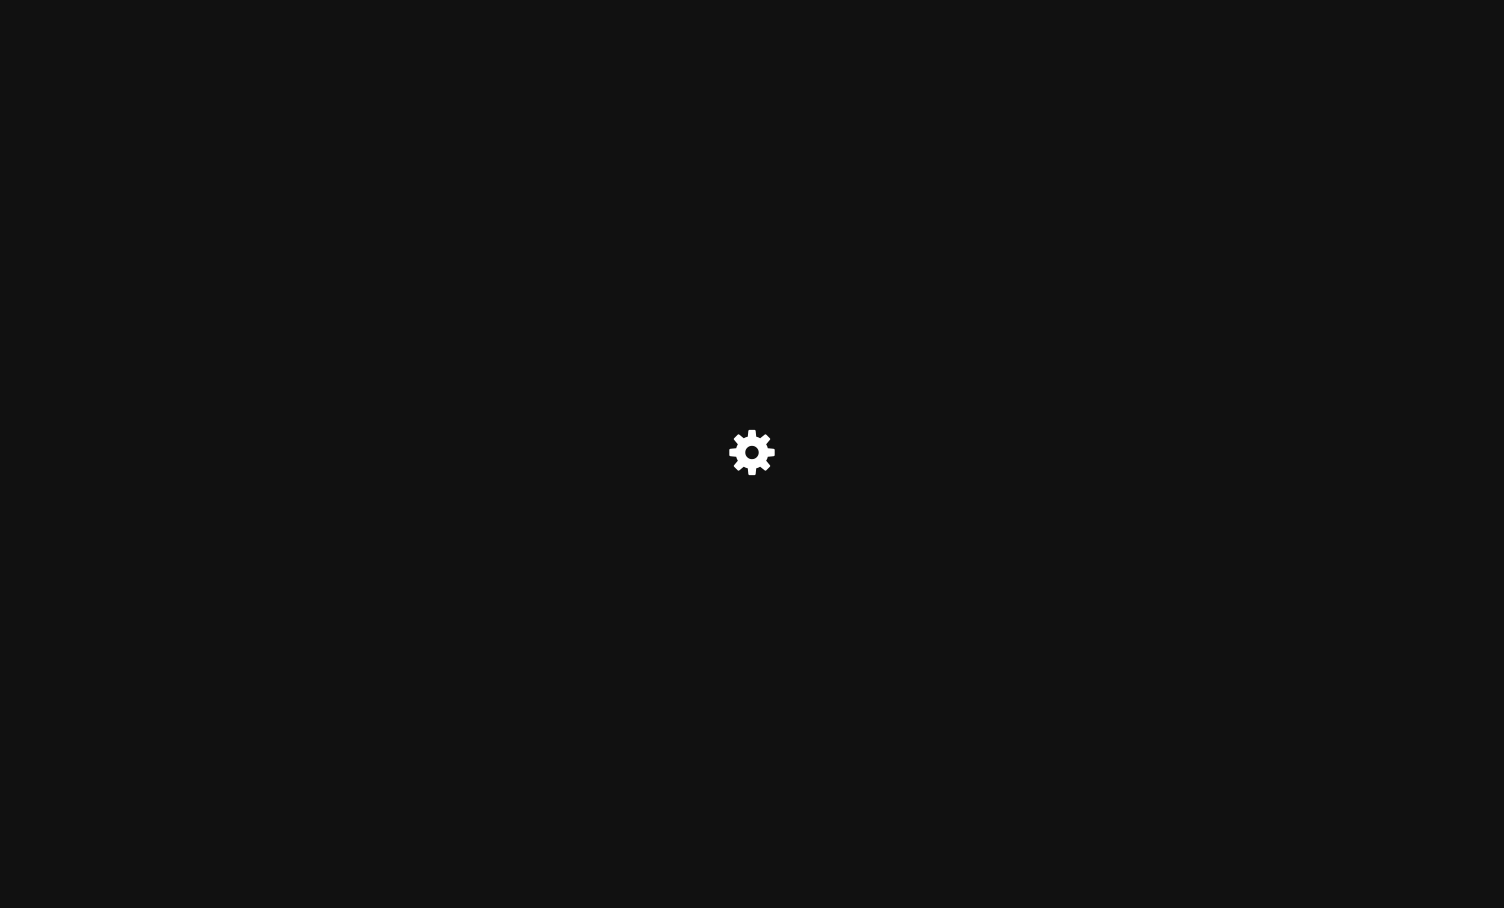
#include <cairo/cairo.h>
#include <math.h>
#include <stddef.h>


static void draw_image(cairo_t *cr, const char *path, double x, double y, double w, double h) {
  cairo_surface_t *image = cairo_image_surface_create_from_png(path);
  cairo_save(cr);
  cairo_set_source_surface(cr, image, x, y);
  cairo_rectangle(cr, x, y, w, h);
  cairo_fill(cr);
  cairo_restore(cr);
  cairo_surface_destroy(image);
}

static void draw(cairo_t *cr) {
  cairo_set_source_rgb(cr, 17 / 255.0, 17 / 255.0, 17 / 255.0);
  cairo_paint(cr);
  draw_image(cr, "images/1.png", 729, 429, 46, 47);
}

int main(void) {
  cairo_surface_t *surface = cairo_image_surface_create(CAIRO_FORMAT_RGB24, 1504, 908);
  cairo_t *cr = cairo_create(surface);
  cairo_font_options_t *options = cairo_font_options_create();
  cairo_font_options_set_hint_metrics(options, CAIRO_HINT_METRICS_OFF);
  cairo_font_options_set_hint_style(options, CAIRO_HINT_STYLE_NONE);
  cairo_set_font_options(cr, options);
  cairo_set_miter_limit(cr, 4);
  draw(cr);
  cairo_surface_write_to_png(surface, "out.png");
  cairo_font_options_destroy(options);
  cairo_destroy(cr);
  cairo_surface_destroy(surface);
  return 0;
}
